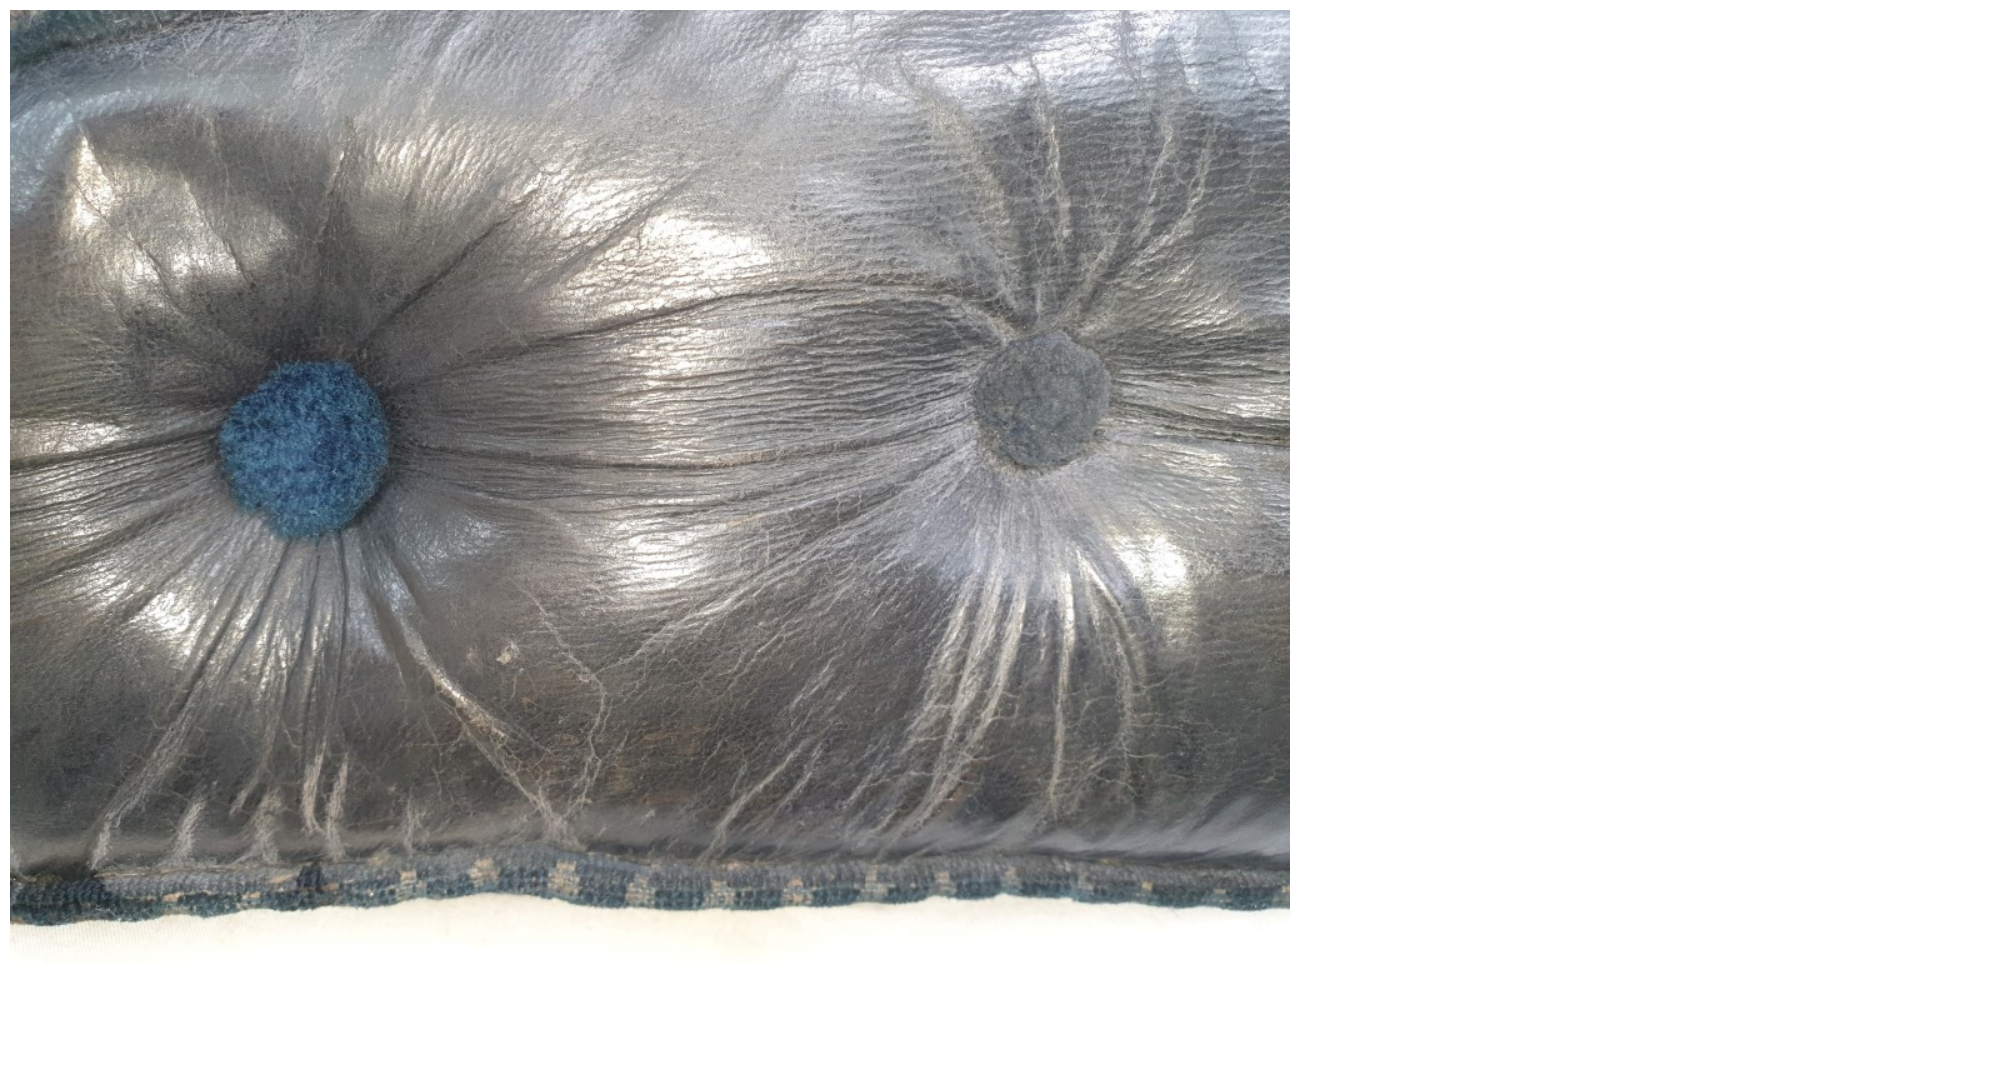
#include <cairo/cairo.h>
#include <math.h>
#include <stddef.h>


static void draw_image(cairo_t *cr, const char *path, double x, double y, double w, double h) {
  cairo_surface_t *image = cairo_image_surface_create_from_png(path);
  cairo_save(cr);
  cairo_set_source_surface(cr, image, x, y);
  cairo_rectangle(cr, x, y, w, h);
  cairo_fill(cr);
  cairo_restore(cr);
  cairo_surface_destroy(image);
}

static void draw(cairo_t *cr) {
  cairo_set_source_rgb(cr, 1, 1, 1);
  cairo_paint(cr);
  draw_image(cr, "images/1.png", 10, 10, 1280, 956);
}

int main(void) {
  cairo_surface_t *surface = cairo_image_surface_create(CAIRO_FORMAT_RGB24, 2011, 1073);
  cairo_t *cr = cairo_create(surface);
  cairo_font_options_t *options = cairo_font_options_create();
  cairo_font_options_set_hint_metrics(options, CAIRO_HINT_METRICS_OFF);
  cairo_font_options_set_hint_style(options, CAIRO_HINT_STYLE_NONE);
  cairo_set_font_options(cr, options);
  cairo_set_miter_limit(cr, 4);
  draw(cr);
  cairo_surface_write_to_png(surface, "out.png");
  cairo_font_options_destroy(options);
  cairo_destroy(cr);
  cairo_surface_destroy(surface);
  return 0;
}
